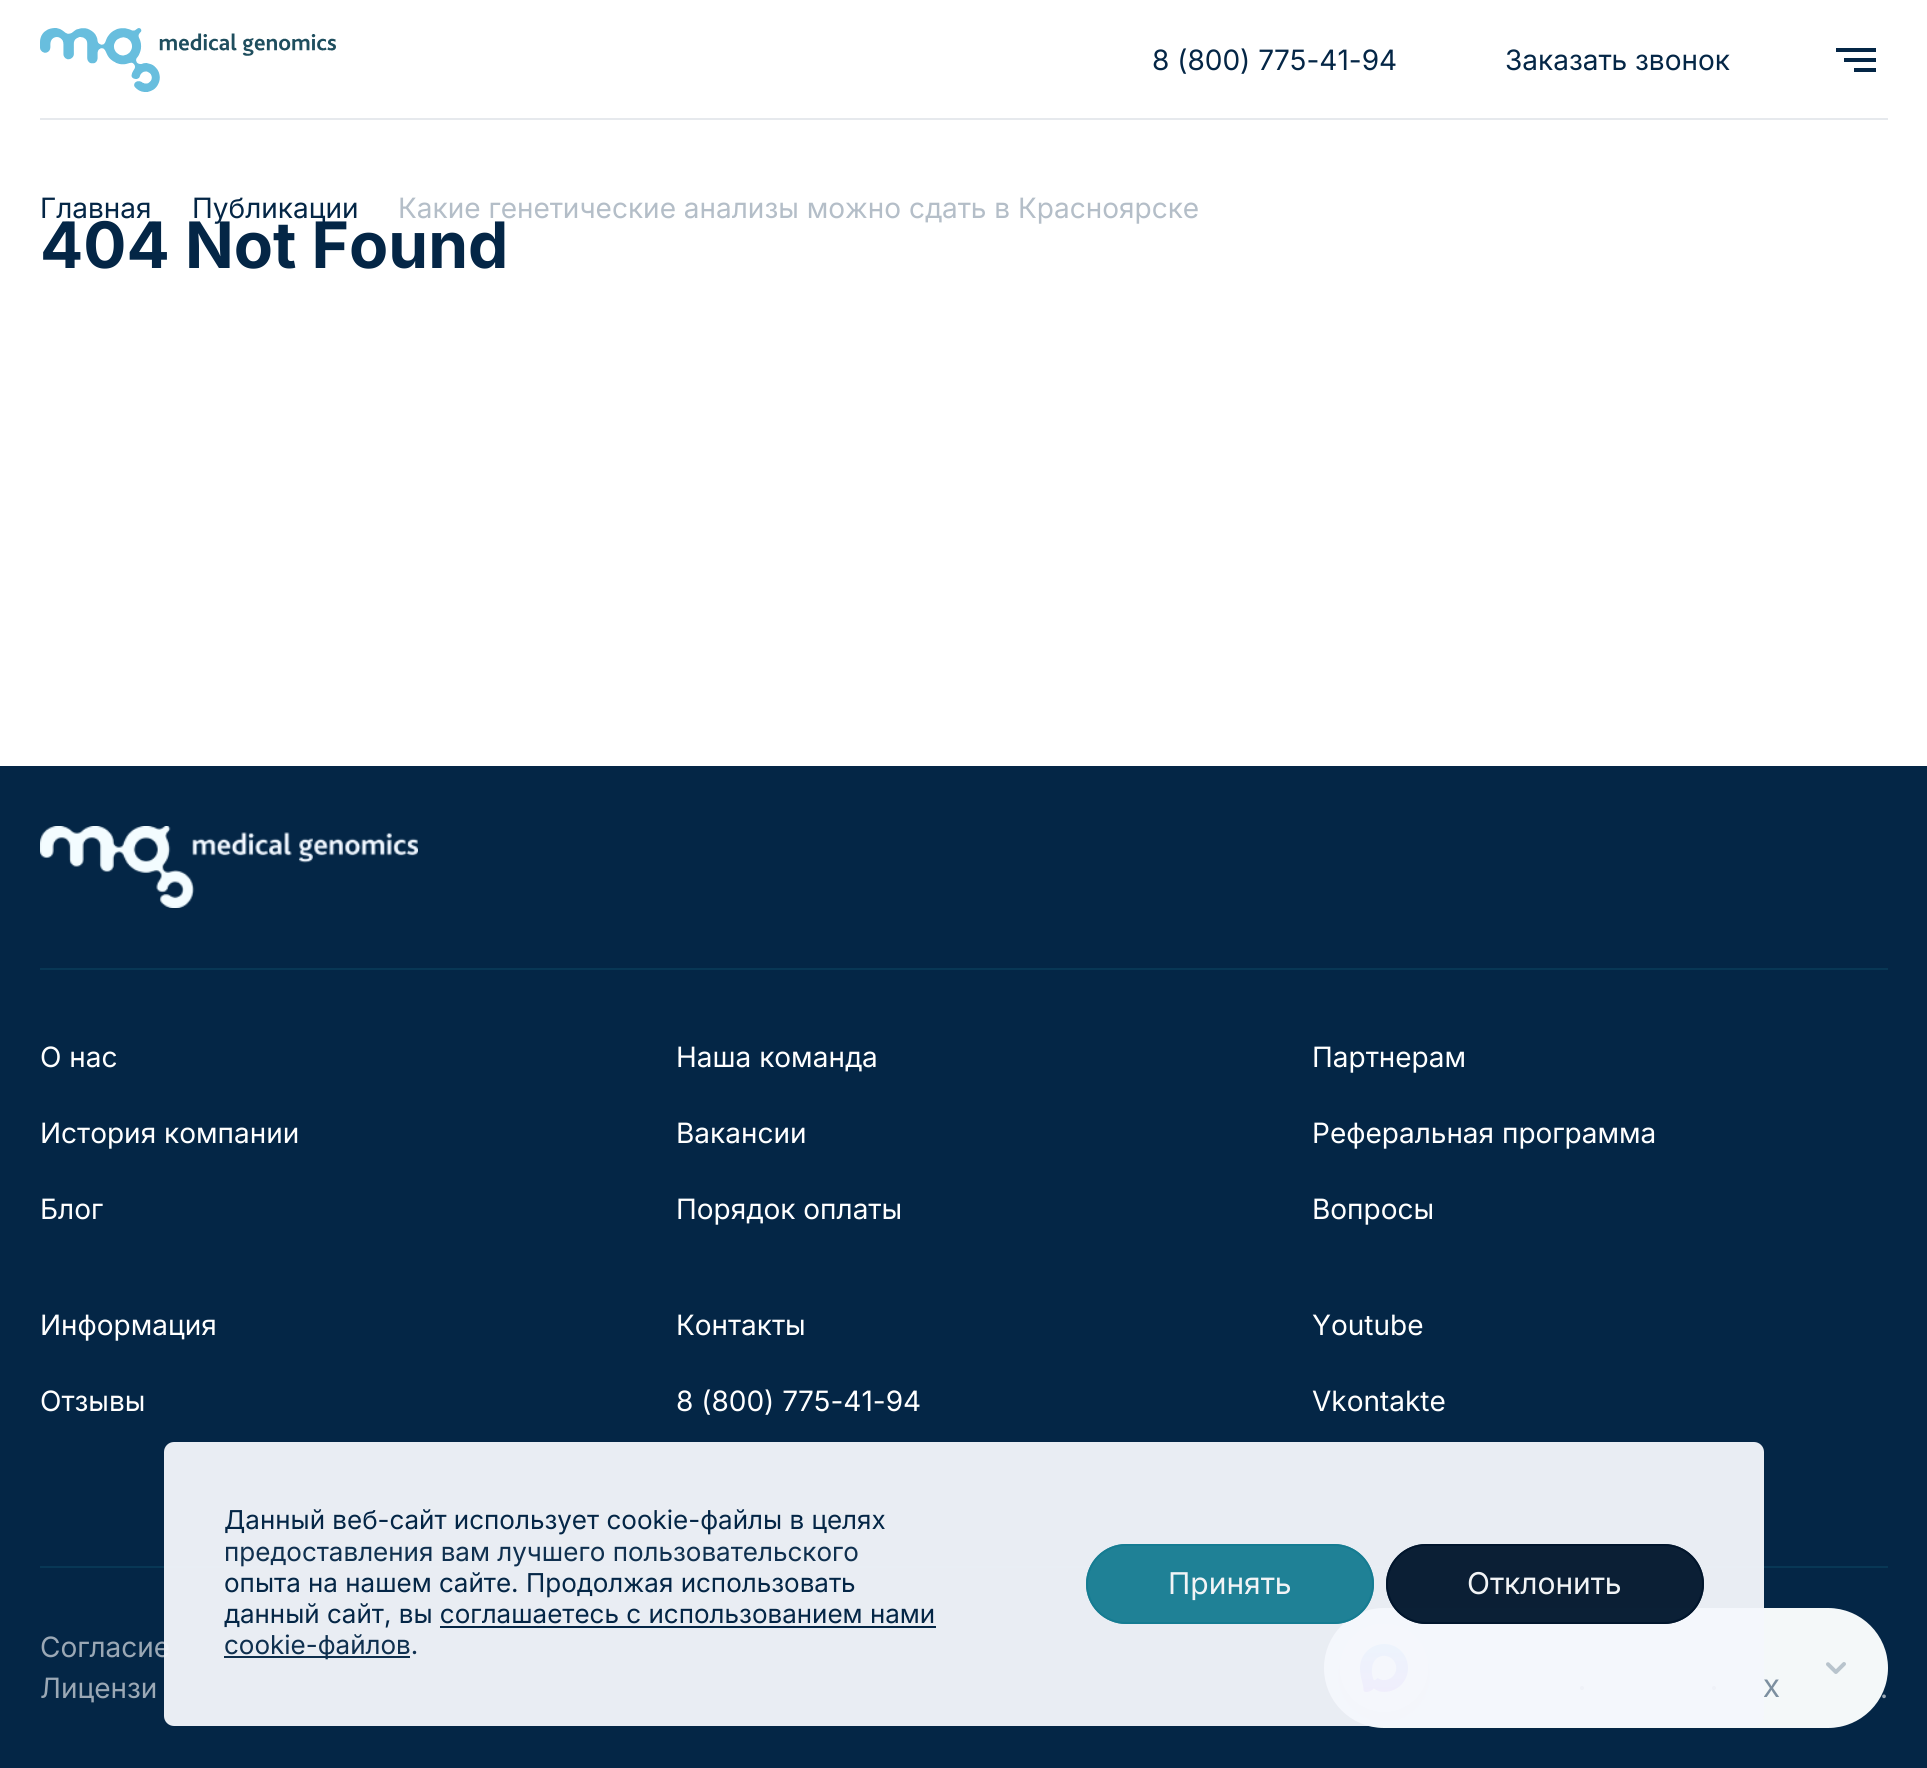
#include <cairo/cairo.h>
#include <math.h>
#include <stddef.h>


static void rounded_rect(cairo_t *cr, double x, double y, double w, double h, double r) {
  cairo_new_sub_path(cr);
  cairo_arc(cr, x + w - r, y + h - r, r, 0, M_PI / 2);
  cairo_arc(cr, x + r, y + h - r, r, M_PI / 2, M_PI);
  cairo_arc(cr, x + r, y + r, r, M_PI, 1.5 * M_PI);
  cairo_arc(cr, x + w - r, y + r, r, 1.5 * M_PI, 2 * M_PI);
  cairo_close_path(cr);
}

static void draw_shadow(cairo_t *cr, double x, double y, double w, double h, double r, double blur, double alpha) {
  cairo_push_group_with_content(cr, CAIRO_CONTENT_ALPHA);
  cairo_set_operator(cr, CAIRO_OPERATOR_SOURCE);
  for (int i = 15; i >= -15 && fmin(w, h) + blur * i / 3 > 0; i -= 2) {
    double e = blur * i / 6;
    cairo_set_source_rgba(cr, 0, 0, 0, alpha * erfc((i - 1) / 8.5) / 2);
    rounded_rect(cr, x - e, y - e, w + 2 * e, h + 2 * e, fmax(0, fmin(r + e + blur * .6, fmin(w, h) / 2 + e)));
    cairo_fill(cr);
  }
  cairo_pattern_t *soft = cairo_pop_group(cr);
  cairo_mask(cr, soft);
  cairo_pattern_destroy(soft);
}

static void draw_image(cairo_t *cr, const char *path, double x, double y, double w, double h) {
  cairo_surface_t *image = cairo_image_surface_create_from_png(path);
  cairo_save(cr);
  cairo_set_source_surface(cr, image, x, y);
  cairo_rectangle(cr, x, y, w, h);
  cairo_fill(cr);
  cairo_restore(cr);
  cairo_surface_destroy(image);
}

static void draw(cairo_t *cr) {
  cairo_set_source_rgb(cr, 1, 1, 1);
  cairo_paint(cr);
  cairo_set_source_rgb(cr, 230 / 255.0, 233 / 255.0, 237 / 255.0);
  cairo_rectangle(cr, 40, 118, 1848, 2);
  cairo_fill(cr);
  draw_image(cr, "images/1.png", 40, 28, 296, 64);
  cairo_set_source_rgb(cr, 4 / 255.0, 38 / 255.0, 70 / 255.0);
  cairo_rectangle(cr, 1836, 48, 40, 4);
  cairo_fill(cr);
  cairo_rectangle(cr, 1844, 58, 32, 4);
  cairo_fill(cr);
  cairo_rectangle(cr, 1854, 68, 22, 4);
  cairo_fill(cr);
  cairo_rectangle(cr, 0, 766, 1927, 1002);
  cairo_fill(cr);
  draw_image(cr, "images/2.png", 40, 826, 378, 82);
  cairo_set_source_rgb(cr, 8 / 255.0, 55 / 255.0, 85 / 255.0);
  cairo_rectangle(cr, 40, 968, 1848, 2);
  cairo_fill(cr);
  cairo_rectangle(cr, 40, 1566, 1848, 2);
  cairo_fill(cr);
  cairo_select_font_face(cr, "Inter", CAIRO_FONT_SLANT_NORMAL, CAIRO_FONT_WEIGHT_NORMAL);
  cairo_set_font_size(cr, 28);
  cairo_set_source_rgb(cr, 4 / 255.0, 38 / 255.0, 70 / 255.0);
  cairo_move_to(cr, 1152, 70);
  cairo_show_text(cr, "8 (800) 775-41-94");
  cairo_move_to(cr, 1505, 70);
  cairo_show_text(cr, "Заказать звонок");
  cairo_move_to(cr, 40, 218);
  cairo_show_text(cr, "Главная");
  cairo_move_to(cr, 192, 218);
  cairo_show_text(cr, "Публикации");
  cairo_set_source_rgb(cr, 180 / 255.0, 190 / 255.0, 200 / 255.0);
  cairo_move_to(cr, 398, 218);
  cairo_show_text(cr, "Какие генетические анализы можно сдать в Красноярске");
  cairo_select_font_face(cr, "Inter", CAIRO_FONT_SLANT_NORMAL, CAIRO_FONT_WEIGHT_BOLD);
  cairo_set_font_size(cr, 64);
  cairo_set_source_rgb(cr, 4 / 255.0, 38 / 255.0, 70 / 255.0);
  cairo_move_to(cr, 40, 268);
  cairo_show_text(cr, "404 Not Found");
  cairo_select_font_face(cr, "Inter", CAIRO_FONT_SLANT_NORMAL, CAIRO_FONT_WEIGHT_NORMAL);
  cairo_set_font_size(cr, 28);
  cairo_set_source_rgb(cr, 1, 1, 1);
  cairo_move_to(cr, 40, 1067);
  cairo_show_text(cr, "О нас");
  cairo_move_to(cr, 40, 1143);
  cairo_show_text(cr, "История компании");
  cairo_move_to(cr, 40, 1219);
  cairo_show_text(cr, "Блог");
  cairo_move_to(cr, 676, 1067);
  cairo_show_text(cr, "Наша команда");
  cairo_move_to(cr, 676, 1143);
  cairo_show_text(cr, "Вакансии");
  cairo_move_to(cr, 676, 1219);
  cairo_show_text(cr, "Порядок оплаты");
  cairo_move_to(cr, 1312, 1067);
  cairo_show_text(cr, "Партнерам");
  cairo_move_to(cr, 1312, 1143);
  cairo_show_text(cr, "Реферальная программа");
  cairo_move_to(cr, 1312, 1219);
  cairo_show_text(cr, "Вопросы");
  cairo_move_to(cr, 40, 1335);
  cairo_show_text(cr, "Информация");
  cairo_move_to(cr, 40, 1411);
  cairo_show_text(cr, "Отзывы");
  cairo_move_to(cr, 676, 1335);
  cairo_show_text(cr, "Контакты");
  cairo_move_to(cr, 676, 1411);
  cairo_show_text(cr, "8 (800) 775-41-94");
  cairo_move_to(cr, 1312, 1335);
  cairo_show_text(cr, "Youtube");
  cairo_move_to(cr, 1312, 1411);
  cairo_show_text(cr, "Vkontakte");
  cairo_set_source_rgb(cr, 155 / 255.0, 168 / 255.0, 181 / 255.0);
  cairo_move_to(cr, 40, 1657);
  cairo_show_text(cr, "Согласие");
  cairo_move_to(cr, 40, 1698);
  cairo_show_text(cr, "Лицензи");
  cairo_move_to(cr, 1880, 1698);
  cairo_show_text(cr, ".");
  cairo_set_source_rgb(cr, 244 / 255.0, 248 / 255.0, 249 / 255.0);
  rounded_rect(cr, 1324, 1608, 564, 120, 60);
  cairo_fill(cr);
  cairo_set_source_rgb(cr, 0, 0, 0);
  draw_shadow(cr, 1340, 1632, 88, 88, 44, 4, 0.05);
  cairo_set_source_rgb(cr, 1, 1, 1);
  cairo_arc(cr, 1384, 1668, 44, 0, 2 * M_PI);
  cairo_fill(cr);
  draw_image(cr, "images/3.png", 1360, 1644, 48, 48);
  draw_image(cr, "images/4.png", 1826, 1662, 20, 12);
  cairo_set_source_rgb(cr, 124 / 255.0, 143 / 255.0, 160 / 255.0);
  cairo_arc(cr, 1582, 1688, 2, 0, 2 * M_PI);
  cairo_fill(cr);
  cairo_arc(cr, 1714, 1688, 2, 0, 2 * M_PI);
  cairo_fill(cr);
  cairo_select_font_face(cr, "Inter Medium", CAIRO_FONT_SLANT_NORMAL, CAIRO_FONT_WEIGHT_NORMAL);
  cairo_set_font_size(cr, 24);
  cairo_move_to(cr, 1763, 1697);
  cairo_show_text(cr, "X");
  cairo_set_source_rgba(cr, 245 / 255.0, 247 / 255.0, 252 / 255.0, 0.95);
  rounded_rect(cr, 164, 1442, 1600, 284, 10);
  cairo_fill(cr);
  cairo_set_source_rgba(cr, 0, 22 / 255.0, 45 / 255.0, 0.95);
  rounded_rect(cr, 1386, 1544, 318, 80, 40);
  cairo_fill(cr);
  rounded_rect(cr, 1387, 1545, 316, 78, 39);
  cairo_stroke(cr);
  cairo_select_font_face(cr, "Inter", CAIRO_FONT_SLANT_NORMAL, CAIRO_FONT_WEIGHT_NORMAL);
  cairo_set_font_size(cr, 30);
  cairo_set_source_rgb(cr, 242 / 255.0, 244 / 255.0, 246 / 255.0);
  cairo_move_to(cr, 1467, 1594);
  cairo_show_text(cr, "Отклонить");
  cairo_set_source_rgba(cr, 22 / 255.0, 124 / 255.0, 146 / 255.0, 0.95);
  rounded_rect(cr, 1086, 1544, 288, 80, 40);
  cairo_fill(cr);
  rounded_rect(cr, 1087, 1545, 286, 78, 39);
  cairo_stroke(cr);
  cairo_set_source_rgb(cr, 242 / 255.0, 244 / 255.0, 246 / 255.0);
  cairo_move_to(cr, 1168, 1594);
  cairo_show_text(cr, "Принять");
  cairo_set_source_rgba(cr, 4 / 255.0, 38 / 255.0, 70 / 255.0, 0.95);
  cairo_rectangle(cr, 224, 1656, 186, 2);
  cairo_fill(cr);
  cairo_set_font_size(cr, 26);
  cairo_set_source_rgb(cr, 15 / 255.0, 48 / 255.0, 79 / 255.0);
  cairo_move_to(cr, 224, 1654);
  cairo_show_text(cr, "cookie-файлов.");
  cairo_set_source_rgb(cr, 4 / 255.0, 38 / 255.0, 70 / 255.0);
  cairo_rectangle(cr, 440, 1626, 496, 2);
  cairo_fill(cr);
  cairo_move_to(cr, 224, 1623);
  cairo_show_text(cr, "данный сайт, вы соглашаетесь с использованием нами");
  cairo_move_to(cr, 224, 1592);
  cairo_show_text(cr, "опыта на нашем сайте. Продолжая использовать");
  cairo_set_source_rgb(cr, 15 / 255.0, 48 / 255.0, 79 / 255.0);
  cairo_move_to(cr, 224, 1561);
  cairo_show_text(cr, "предоставления вам лучшего пользовательского");
  cairo_set_source_rgb(cr, 4 / 255.0, 38 / 255.0, 70 / 255.0);
  cairo_move_to(cr, 224, 1529);
  cairo_show_text(cr, "Данный веб-сайт использует cookie-файлы в целях");
}

int main(void) {
  cairo_surface_t *surface = cairo_image_surface_create(CAIRO_FORMAT_RGB24, 1927, 1768);
  cairo_t *cr = cairo_create(surface);
  cairo_font_options_t *options = cairo_font_options_create();
  cairo_font_options_set_hint_metrics(options, CAIRO_HINT_METRICS_OFF);
  cairo_font_options_set_hint_style(options, CAIRO_HINT_STYLE_NONE);
  cairo_set_font_options(cr, options);
  cairo_set_miter_limit(cr, 4);
  draw(cr);
  cairo_surface_write_to_png(surface, "out.png");
  cairo_font_options_destroy(options);
  cairo_destroy(cr);
  cairo_surface_destroy(surface);
  return 0;
}
